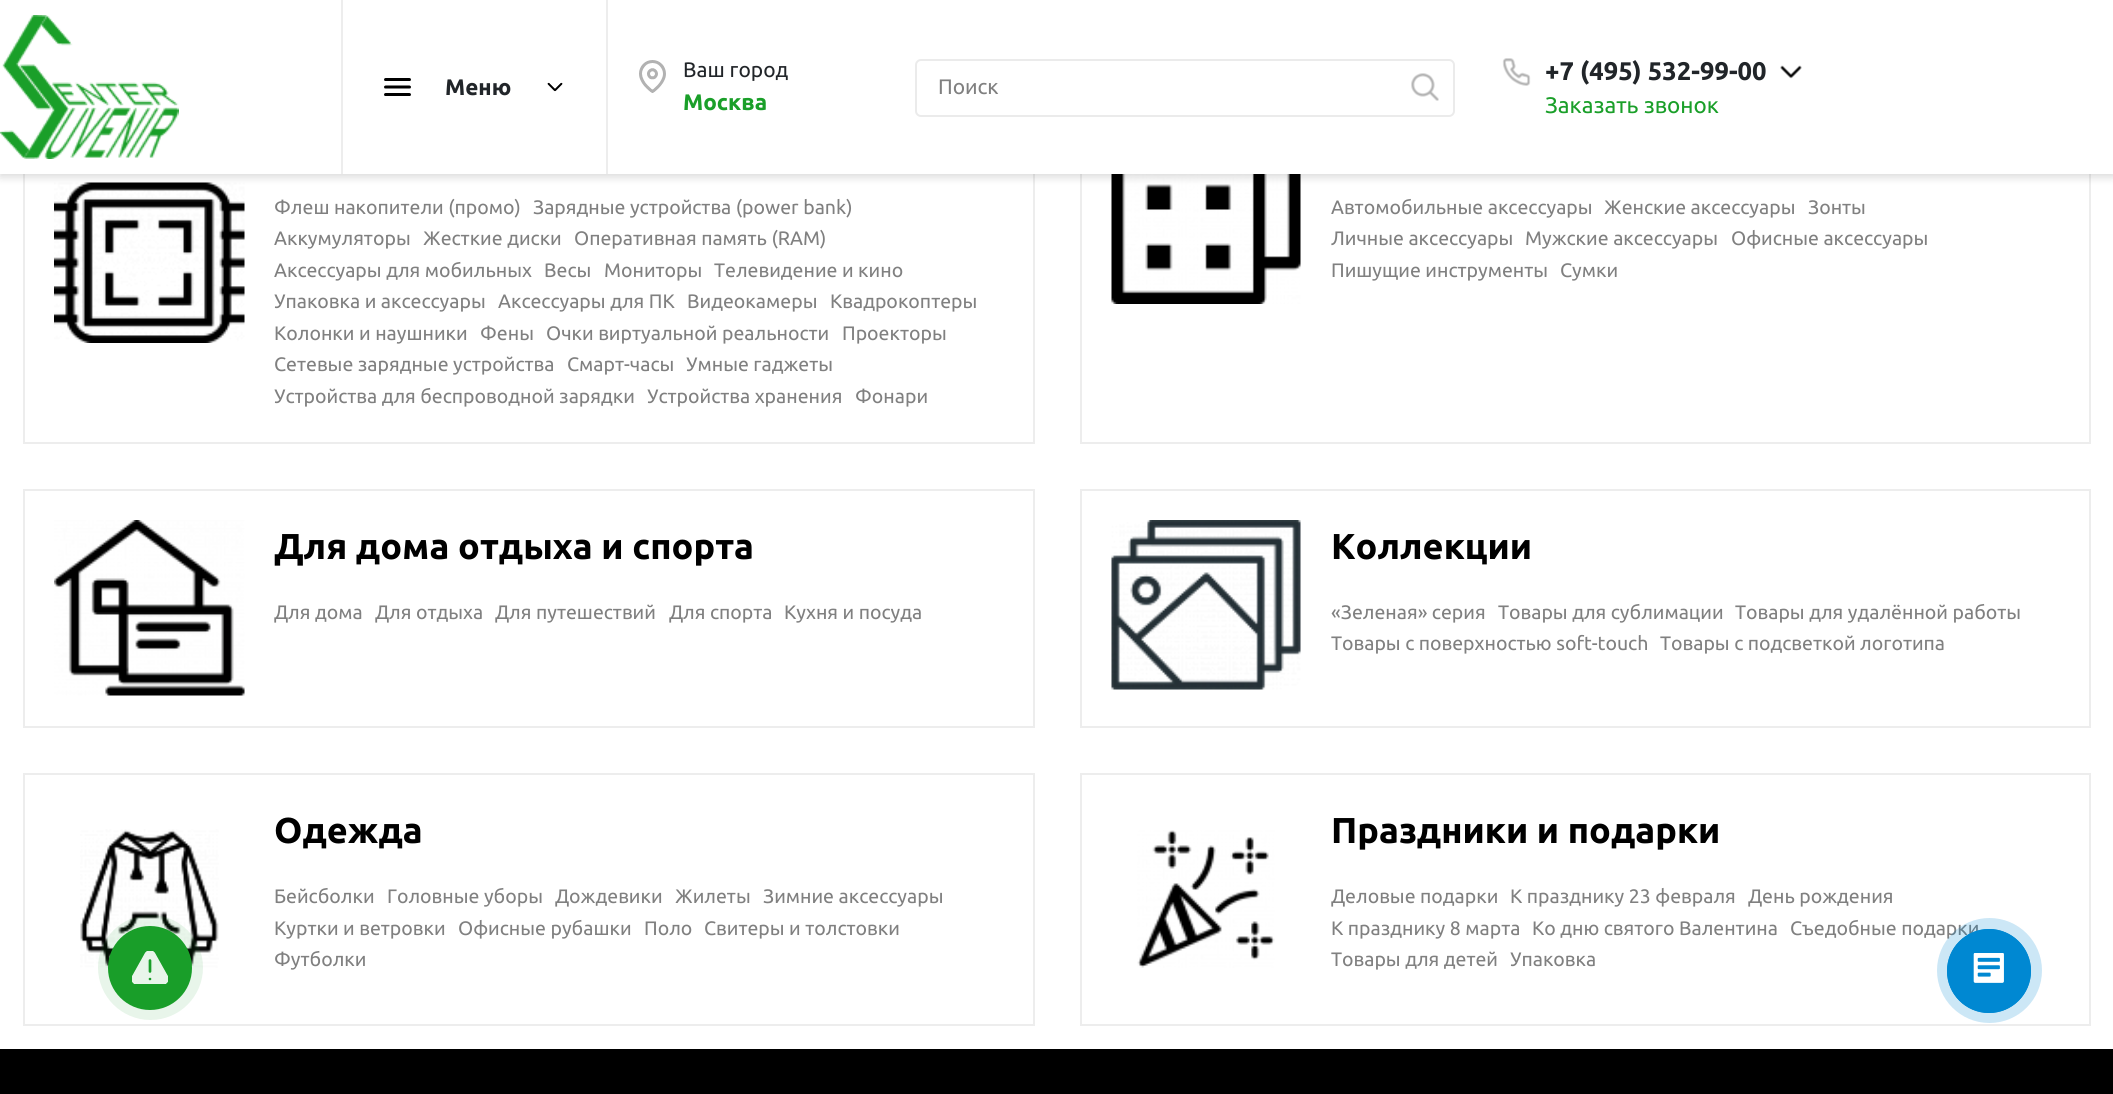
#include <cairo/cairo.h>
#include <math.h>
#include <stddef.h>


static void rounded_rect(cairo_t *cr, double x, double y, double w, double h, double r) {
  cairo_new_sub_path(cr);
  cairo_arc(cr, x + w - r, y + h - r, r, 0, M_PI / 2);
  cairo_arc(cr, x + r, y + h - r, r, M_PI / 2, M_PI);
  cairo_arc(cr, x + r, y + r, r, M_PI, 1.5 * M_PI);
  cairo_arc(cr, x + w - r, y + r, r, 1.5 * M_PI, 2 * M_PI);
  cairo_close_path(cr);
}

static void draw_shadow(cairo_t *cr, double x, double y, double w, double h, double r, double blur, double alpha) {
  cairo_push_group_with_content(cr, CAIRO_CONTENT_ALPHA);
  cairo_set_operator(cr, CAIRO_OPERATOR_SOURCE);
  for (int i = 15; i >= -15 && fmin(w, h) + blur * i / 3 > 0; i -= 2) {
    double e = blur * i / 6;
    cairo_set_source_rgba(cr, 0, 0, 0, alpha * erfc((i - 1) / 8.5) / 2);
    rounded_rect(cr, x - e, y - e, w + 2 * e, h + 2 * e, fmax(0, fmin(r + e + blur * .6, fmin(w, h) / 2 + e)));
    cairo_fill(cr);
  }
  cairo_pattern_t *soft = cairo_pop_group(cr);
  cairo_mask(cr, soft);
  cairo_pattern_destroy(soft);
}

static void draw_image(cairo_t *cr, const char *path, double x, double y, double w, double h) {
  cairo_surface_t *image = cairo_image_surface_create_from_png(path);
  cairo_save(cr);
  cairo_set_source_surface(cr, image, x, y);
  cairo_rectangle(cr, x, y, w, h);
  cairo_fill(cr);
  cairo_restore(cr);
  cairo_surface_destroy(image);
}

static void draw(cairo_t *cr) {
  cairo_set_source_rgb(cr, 1, 1, 1);
  cairo_paint(cr);
  cairo_rectangle(cr, 24, 85, 1010, 358);
  cairo_set_source_rgb(cr, 237 / 255.0, 237 / 255.0, 237 / 255.0);
  cairo_stroke(cr);
  draw_image(cr, "images/9.png", 54, 182, 191, 161);
  cairo_rectangle(cr, 1081, 85, 1009, 358);
  cairo_stroke(cr);
  draw_image(cr, "images/10.png", 1111, 174, 190, 130);
  cairo_set_source_rgb(cr, 0, 0, 0);
  draw_shadow(cr, 0, 3, 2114, 174, 0, 4.5, 0.15);
  cairo_set_source_rgb(cr, 1, 1, 1);
  cairo_rectangle(cr, 0, 0, 2113, 174);
  cairo_fill(cr);
  draw_image(cr, "images/1.png", 0, 15, 179, 144);
  cairo_set_source_rgb(cr, 237 / 255.0, 237 / 255.0, 237 / 255.0);
  cairo_rectangle(cr, 606, 0, 2, 174);
  cairo_fill(cr);
  cairo_rectangle(cr, 341, 0, 2, 174);
  cairo_fill(cr);
  draw_image(cr, "images/2.png", 384, 78, 27, 18);
  draw_image(cr, "images/3.png", 547, 82, 16, 10);
  draw_image(cr, "images/4.png", 639, 60, 27, 33);
  rounded_rect(cr, 916, 60, 538, 56, 5);
  cairo_set_source_rgb(cr, 235 / 255.0, 235 / 255.0, 235 / 255.0);
  cairo_stroke(cr);
  draw_image(cr, "images/5.png", 1411, 73, 28, 28);
  draw_image(cr, "images/6.png", 1502, 58, 29, 28);
  draw_image(cr, "images/7.png", 1780, 65, 22, 14);
  cairo_rectangle(cr, 24, 774, 1010, 251);
  cairo_set_source_rgb(cr, 237 / 255.0, 237 / 255.0, 237 / 255.0);
  cairo_stroke(cr);
  draw_image(cr, "images/13.png", 80, 829, 139, 139);
  cairo_set_source_rgb(cr, 26 / 255.0, 159 / 255.0, 41 / 255.0);
  cairo_arc(cr, 150, 968, 42, 0, 2 * M_PI);
  cairo_fill(cr);
  draw_image(cr, "images/8.png", 132, 951, 36, 33);
  cairo_set_source_rgba(cr, 26 / 255.0, 159 / 255.0, 41 / 255.0, 0.1);
  cairo_arc(cr, 150.5, 967.5, 52.5, 0, 2 * M_PI);
  cairo_fill(cr);
  cairo_rectangle(cr, 24, 490, 1010, 237);
  cairo_set_source_rgb(cr, 237 / 255.0, 237 / 255.0, 237 / 255.0);
  cairo_stroke(cr);
  draw_image(cr, "images/11.png", 54, 520, 191, 176);
  cairo_rectangle(cr, 1081, 490, 1009, 237);
  cairo_stroke(cr);
  draw_image(cr, "images/12.png", 1111, 520, 190, 170);
  cairo_rectangle(cr, 1081, 774, 1009, 251);
  cairo_stroke(cr);
  draw_image(cr, "images/14.png", 1137, 830, 138, 138);
  cairo_set_source_rgb(cr, 0, 0, 0);
  cairo_rectangle(cr, 0, 1049, 2113, 45);
  cairo_fill(cr);
  cairo_select_font_face(cr, "Ubuntu", CAIRO_FONT_SLANT_NORMAL, CAIRO_FONT_WEIGHT_BOLD);
  cairo_set_font_size(cr, 22.5);
  cairo_set_source_rgb(cr, 33 / 255.0, 37 / 255.0, 41 / 255.0);
  cairo_move_to(cr, 445, 95);
  cairo_show_text(cr, "Меню");
  cairo_select_font_face(cr, "Ubuntu", CAIRO_FONT_SLANT_NORMAL, CAIRO_FONT_WEIGHT_NORMAL);
  cairo_set_font_size(cr, 21);
  cairo_move_to(cr, 683, 77);
  cairo_show_text(cr, "Ваш город");
  cairo_select_font_face(cr, "Ubuntu", CAIRO_FONT_SLANT_NORMAL, CAIRO_FONT_WEIGHT_BOLD);
  cairo_set_font_size(cr, 22.5);
  cairo_set_source_rgb(cr, 26 / 255.0, 159 / 255.0, 41 / 255.0);
  cairo_move_to(cr, 683, 110);
  cairo_show_text(cr, "Москва");
  cairo_select_font_face(cr, "Ubuntu", CAIRO_FONT_SLANT_NORMAL, CAIRO_FONT_WEIGHT_NORMAL);
  cairo_set_font_size(cr, 21);
  cairo_set_source_rgb(cr, 128 / 255.0, 128 / 255.0, 128 / 255.0);
  cairo_move_to(cr, 938, 94);
  cairo_show_text(cr, "Поиск");
  cairo_select_font_face(cr, "Ubuntu", CAIRO_FONT_SLANT_NORMAL, CAIRO_FONT_WEIGHT_BOLD);
  cairo_set_font_size(cr, 25.5);
  cairo_set_source_rgb(cr, 33 / 255.0, 37 / 255.0, 41 / 255.0);
  cairo_move_to(cr, 1545, 80);
  cairo_show_text(cr, "+7 (495) 532-99-00");
  cairo_select_font_face(cr, "Ubuntu", CAIRO_FONT_SLANT_NORMAL, CAIRO_FONT_WEIGHT_NORMAL);
  cairo_set_font_size(cr, 22.5);
  cairo_set_source_rgb(cr, 26 / 255.0, 159 / 255.0, 41 / 255.0);
  cairo_move_to(cr, 1545, 113);
  cairo_show_text(cr, "Заказать звонок");
  cairo_set_font_size(cr, 19.5);
  cairo_set_source_rgb(cr, 128 / 255.0, 128 / 255.0, 128 / 255.0);
  cairo_move_to(cr, 274, 214);
  cairo_show_text(cr, "Флеш накопители (промо)");
  cairo_move_to(cr, 533, 214);
  cairo_show_text(cr, "Зарядные устройства (power bank)");
  cairo_move_to(cr, 274, 245);
  cairo_show_text(cr, "Аккумуляторы");
  cairo_move_to(cr, 423, 245);
  cairo_show_text(cr, "Жесткие диски");
  cairo_move_to(cr, 574, 245);
  cairo_show_text(cr, "Оперативная память (RAM)");
  cairo_move_to(cr, 274, 277);
  cairo_show_text(cr, "Аксессуары для мобильных");
  cairo_move_to(cr, 544, 277);
  cairo_show_text(cr, "Весы");
  cairo_move_to(cr, 604, 277);
  cairo_show_text(cr, "Мониторы");
  cairo_move_to(cr, 714, 277);
  cairo_show_text(cr, "Телевидение и кино");
  cairo_move_to(cr, 274, 308);
  cairo_show_text(cr, "Упаковка и аксессуары");
  cairo_move_to(cr, 498, 308);
  cairo_show_text(cr, "Аксессуары для ПК");
  cairo_move_to(cr, 687, 308);
  cairo_show_text(cr, "Видеокамеры");
  cairo_move_to(cr, 830, 308);
  cairo_show_text(cr, "Квадрокоптеры");
  cairo_move_to(cr, 274, 340);
  cairo_show_text(cr, "Колонки и наушники");
  cairo_move_to(cr, 480, 340);
  cairo_show_text(cr, "Фены");
  cairo_move_to(cr, 546, 340);
  cairo_show_text(cr, "Очки виртуальной реальности");
  cairo_move_to(cr, 842, 340);
  cairo_show_text(cr, "Проекторы");
  cairo_move_to(cr, 274, 371);
  cairo_show_text(cr, "Сетевые зарядные устройства");
  cairo_move_to(cr, 567, 371);
  cairo_show_text(cr, "Смарт-часы");
  cairo_move_to(cr, 686, 371);
  cairo_show_text(cr, "Умные гаджеты");
  cairo_move_to(cr, 274, 403);
  cairo_show_text(cr, "Устройства для беспроводной зарядки");
  cairo_move_to(cr, 647, 403);
  cairo_show_text(cr, "Устройства хранения");
  cairo_move_to(cr, 855, 403);
  cairo_show_text(cr, "Фонари");
  cairo_move_to(cr, 1331, 214);
  cairo_show_text(cr, "Автомобильные аксессуары");
  cairo_move_to(cr, 1604, 214);
  cairo_show_text(cr, "Женские аксессуары");
  cairo_move_to(cr, 1808, 214);
  cairo_show_text(cr, "Зонты");
  cairo_move_to(cr, 1331, 245);
  cairo_show_text(cr, "Личные аксессуары");
  cairo_move_to(cr, 1525, 245);
  cairo_show_text(cr, "Мужские аксессуары");
  cairo_move_to(cr, 1731, 245);
  cairo_show_text(cr, "Офисные аксессуары");
  cairo_move_to(cr, 1331, 277);
  cairo_show_text(cr, "Пишущие инструменты");
  cairo_move_to(cr, 1560, 277);
  cairo_show_text(cr, "Сумки");
  cairo_select_font_face(cr, "Ubuntu", CAIRO_FONT_SLANT_NORMAL, CAIRO_FONT_WEIGHT_BOLD);
  cairo_set_font_size(cr, 36);
  cairo_set_source_rgb(cr, 0, 0, 0);
  cairo_move_to(cr, 274, 559);
  cairo_show_text(cr, "Для дома отдыха и спорта");
  cairo_select_font_face(cr, "Ubuntu", CAIRO_FONT_SLANT_NORMAL, CAIRO_FONT_WEIGHT_NORMAL);
  cairo_set_font_size(cr, 19.5);
  cairo_set_source_rgb(cr, 128 / 255.0, 128 / 255.0, 128 / 255.0);
  cairo_move_to(cr, 274, 619);
  cairo_show_text(cr, "Для дома");
  cairo_move_to(cr, 375, 619);
  cairo_show_text(cr, "Для отдыха");
  cairo_move_to(cr, 495, 619);
  cairo_show_text(cr, "Для путешествий");
  cairo_move_to(cr, 669, 619);
  cairo_show_text(cr, "Для спорта");
  cairo_move_to(cr, 784, 619);
  cairo_show_text(cr, "Кухня и посуда");
  cairo_select_font_face(cr, "Ubuntu", CAIRO_FONT_SLANT_NORMAL, CAIRO_FONT_WEIGHT_BOLD);
  cairo_set_font_size(cr, 36);
  cairo_set_source_rgb(cr, 0, 0, 0);
  cairo_move_to(cr, 1331, 559);
  cairo_show_text(cr, "Коллекции");
  cairo_select_font_face(cr, "Ubuntu", CAIRO_FONT_SLANT_NORMAL, CAIRO_FONT_WEIGHT_NORMAL);
  cairo_set_font_size(cr, 19.5);
  cairo_set_source_rgb(cr, 128 / 255.0, 128 / 255.0, 128 / 255.0);
  cairo_move_to(cr, 1331, 619);
  cairo_show_text(cr, "«Зеленая» серия");
  cairo_move_to(cr, 1498, 619);
  cairo_show_text(cr, "Товары для сублимации");
  cairo_move_to(cr, 1735, 619);
  cairo_show_text(cr, "Товары для удалённой работы");
  cairo_move_to(cr, 1331, 650);
  cairo_show_text(cr, "Товары с поверхностью soft-touch");
  cairo_move_to(cr, 1660, 650);
  cairo_show_text(cr, "Товары с подсветкой логотипа");
  cairo_select_font_face(cr, "Ubuntu", CAIRO_FONT_SLANT_NORMAL, CAIRO_FONT_WEIGHT_BOLD);
  cairo_set_font_size(cr, 36);
  cairo_set_source_rgb(cr, 0, 0, 0);
  cairo_move_to(cr, 274, 843);
  cairo_show_text(cr, "Одежда");
  cairo_select_font_face(cr, "Ubuntu", CAIRO_FONT_SLANT_NORMAL, CAIRO_FONT_WEIGHT_NORMAL);
  cairo_set_font_size(cr, 19.5);
  cairo_set_source_rgb(cr, 128 / 255.0, 128 / 255.0, 128 / 255.0);
  cairo_move_to(cr, 274, 903);
  cairo_show_text(cr, "Бейсболки");
  cairo_move_to(cr, 387, 903);
  cairo_show_text(cr, "Головные уборы");
  cairo_move_to(cr, 555, 903);
  cairo_show_text(cr, "Дождевики");
  cairo_move_to(cr, 675, 903);
  cairo_show_text(cr, "Жилеты");
  cairo_move_to(cr, 763, 903);
  cairo_show_text(cr, "Зимние аксессуары");
  cairo_move_to(cr, 274, 935);
  cairo_show_text(cr, "Куртки и ветровки");
  cairo_move_to(cr, 458, 935);
  cairo_show_text(cr, "Офисные рубашки");
  cairo_move_to(cr, 644, 935);
  cairo_show_text(cr, "Поло");
  cairo_move_to(cr, 704, 935);
  cairo_show_text(cr, "Свитеры и толстовки");
  cairo_move_to(cr, 274, 966);
  cairo_show_text(cr, "Футболки");
  cairo_select_font_face(cr, "Ubuntu", CAIRO_FONT_SLANT_NORMAL, CAIRO_FONT_WEIGHT_BOLD);
  cairo_set_font_size(cr, 36);
  cairo_set_source_rgb(cr, 0, 0, 0);
  cairo_move_to(cr, 1331, 843);
  cairo_show_text(cr, "Праздники и подарки");
  cairo_select_font_face(cr, "Ubuntu", CAIRO_FONT_SLANT_NORMAL, CAIRO_FONT_WEIGHT_NORMAL);
  cairo_set_font_size(cr, 19.5);
  cairo_set_source_rgb(cr, 128 / 255.0, 128 / 255.0, 128 / 255.0);
  cairo_move_to(cr, 1331, 903);
  cairo_show_text(cr, "Деловые подарки");
  cairo_move_to(cr, 1510, 903);
  cairo_show_text(cr, "К празднику 23 февраля");
  cairo_move_to(cr, 1748, 903);
  cairo_show_text(cr, "День рождения");
  cairo_move_to(cr, 1331, 935);
  cairo_show_text(cr, "К празднику 8 марта");
  cairo_move_to(cr, 1532, 935);
  cairo_show_text(cr, "Ко дню святого Валентина");
  cairo_move_to(cr, 1790, 935);
  cairo_show_text(cr, "Съедобные подарки");
  cairo_move_to(cr, 1331, 966);
  cairo_show_text(cr, "Товары для детей");
  cairo_move_to(cr, 1510, 966);
  cairo_show_text(cr, "Упаковка");
  cairo_set_source_rgba(cr, 0, 136 / 255.0, 210 / 255.0, 0.2);
  cairo_new_path(cr);
  cairo_arc(cr, 1989.5, 970.5, 52.5, 0, 2 * M_PI);
  cairo_fill(cr);
  cairo_arc(cr, 1989, 971, 41.5, 0, 2 * M_PI);
  cairo_set_source_rgb(cr, 0, 136 / 255.0, 210 / 255.0);
  cairo_set_line_width(cr, 1);
  cairo_stroke(cr);
  cairo_arc(cr, 1989, 971, 42, 0, 2 * M_PI);
  cairo_fill(cr);
  draw_image(cr, "images/15.png", 1973, 953, 31, 30);
}

int main(void) {
  cairo_surface_t *surface = cairo_image_surface_create(CAIRO_FORMAT_RGB24, 2113, 1094);
  cairo_t *cr = cairo_create(surface);
  cairo_font_options_t *options = cairo_font_options_create();
  cairo_font_options_set_hint_metrics(options, CAIRO_HINT_METRICS_OFF);
  cairo_font_options_set_hint_style(options, CAIRO_HINT_STYLE_NONE);
  cairo_set_font_options(cr, options);
  cairo_set_miter_limit(cr, 4);
  draw(cr);
  cairo_surface_write_to_png(surface, "out.png");
  cairo_font_options_destroy(options);
  cairo_destroy(cr);
  cairo_surface_destroy(surface);
  return 0;
}
